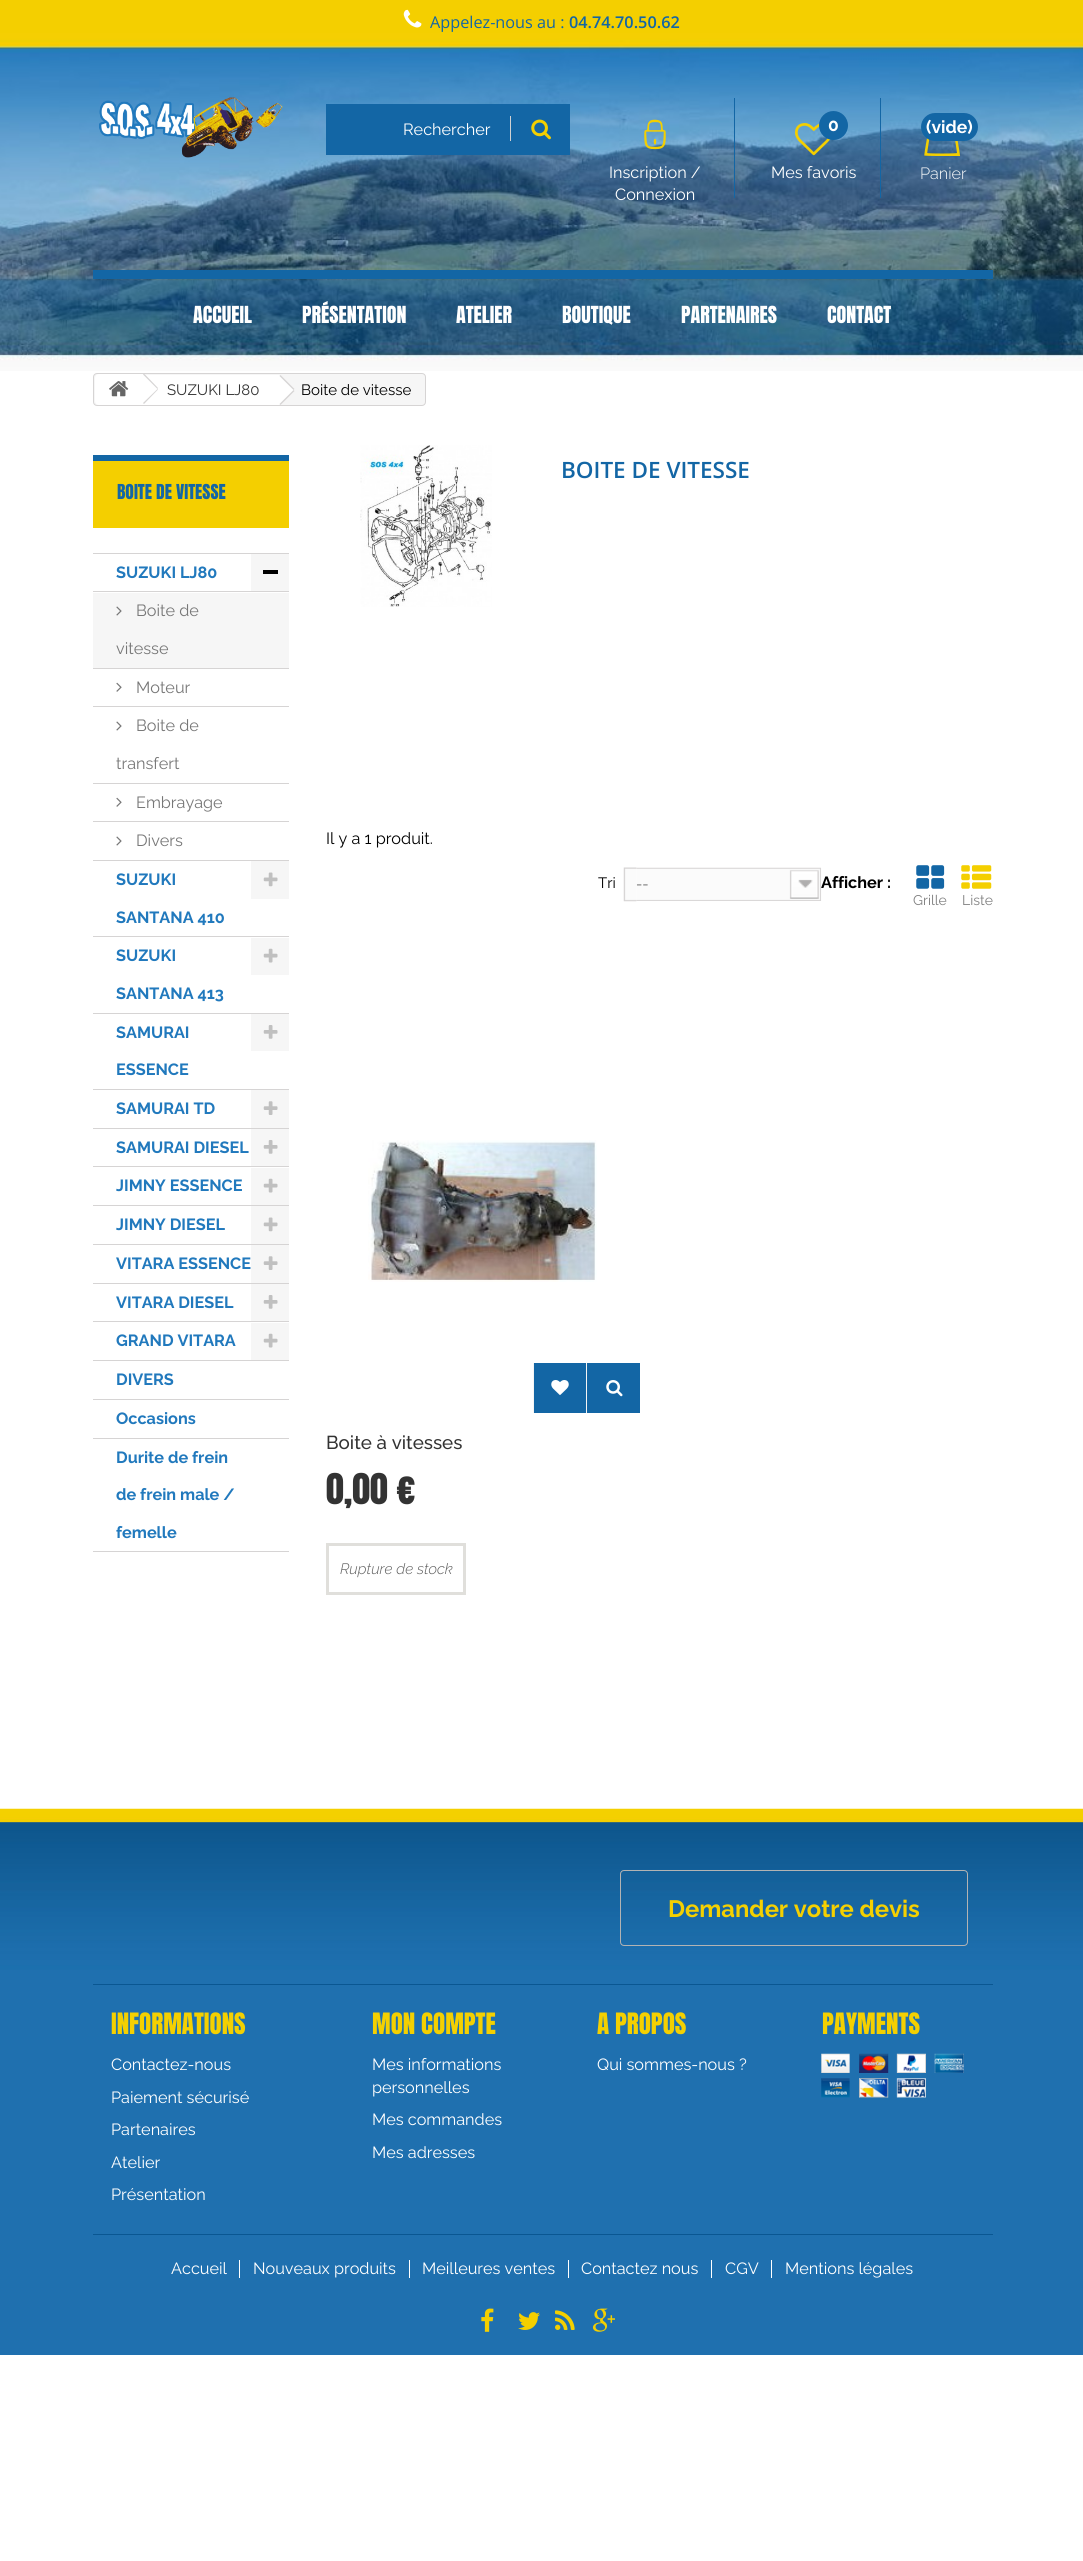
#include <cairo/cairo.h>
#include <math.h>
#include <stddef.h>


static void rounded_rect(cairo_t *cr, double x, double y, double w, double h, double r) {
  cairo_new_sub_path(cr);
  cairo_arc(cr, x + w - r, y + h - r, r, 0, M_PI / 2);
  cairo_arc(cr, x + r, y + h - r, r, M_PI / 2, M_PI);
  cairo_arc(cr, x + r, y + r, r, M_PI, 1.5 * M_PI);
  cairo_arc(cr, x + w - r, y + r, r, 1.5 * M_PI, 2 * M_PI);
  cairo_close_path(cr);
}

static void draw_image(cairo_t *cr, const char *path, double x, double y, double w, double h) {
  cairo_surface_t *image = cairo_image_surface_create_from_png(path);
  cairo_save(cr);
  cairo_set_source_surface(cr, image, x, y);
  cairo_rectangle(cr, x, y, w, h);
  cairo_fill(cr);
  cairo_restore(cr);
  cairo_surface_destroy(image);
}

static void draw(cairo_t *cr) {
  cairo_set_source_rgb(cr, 1, 1, 1);
  cairo_paint(cr);
  draw_image(cr, "images/1.png", 0, 33, 1083, 338);
  cairo_set_source_rgb(cr, 244 / 255.0, 207 / 255.0, 0);
  cairo_rectangle(cr, 0, 0, 1083, 33);
  cairo_fill(cr);
  draw_image(cr, "images/2.png", 403, 9, 19, 19);
  draw_image(cr, "images/3.png", 99, 97, 184, 61);
  cairo_set_source_rgb(cr, 19 / 255.0, 102 / 255.0, 165 / 255.0);
  cairo_rectangle(cr, 326, 104, 244, 51);
  cairo_fill(cr);
  cairo_set_source_rgb(cr, 209 / 255.0, 209 / 255.0, 209 / 255.0);
  cairo_rectangle(cr, 510, 116, 1, 25);
  cairo_fill(cr);
  draw_image(cr, "images/4.png", 531, 119, 20, 21);
  cairo_set_source_rgb(cr, 19 / 255.0, 102 / 255.0, 165 / 255.0);
  cairo_rectangle(cr, 734, 98, 1, 100);
  cairo_fill(cr);
  draw_image(cr, "images/5.png", 795, 123, 36, 33);
  cairo_arc(cr, 833.5, 125.5, 14.5, 0, 2 * M_PI);
  cairo_fill(cr);
  draw_image(cr, "images/6.png", 644, 119, 22, 31);
  cairo_rectangle(cr, 880, 98, 1, 100);
  cairo_fill(cr);
  draw_image(cr, "images/7.png", 924, 138, 37, 18);
  rounded_rect(cr, 921, 113, 57, 28, 14);
  cairo_fill(cr);
  cairo_rectangle(cr, 93, 270, 900, 9);
  cairo_fill(cr);
  cairo_set_source_rgb(cr, 246 / 255.0, 246 / 255.0, 246 / 255.0);
  rounded_rect(cr, 93.5, 373.5, 332, 32, 3.5);
  cairo_fill_preserve(cr);
  cairo_set_source_rgb(cr, 214 / 255.0, 212 / 255.0, 212 / 255.0);
  cairo_set_line_width(cr, 1);
  cairo_stroke(cr);
  cairo_set_source_rgb(cr, 1, 1, 1);
  cairo_new_path(cr);
  cairo_move_to(cr, 99, 374);
  cairo_line_to(cr, 143, 374);
  cairo_line_to(cr, 143, 405);
  cairo_line_to(cr, 99, 405);
  cairo_curve_to(cr, 97, 405, 95, 403, 95, 401);
  cairo_line_to(cr, 95, 378);
  cairo_curve_to(cr, 95, 376, 97, 374, 99, 374);
  cairo_close_path(cr);
  cairo_fill(cr);
  cairo_rectangle(cr, 143, 375, 136, 30);
  cairo_fill(cr);
  cairo_new_path(cr);
  cairo_move_to(cr, 145, 374.5);
  cairo_line_to(cr, 144.5, 374);
  cairo_line_to(cr, 142, 374);
  cairo_line_to(cr, 141.5, 374.5);
  cairo_line_to(cr, 129, 387);
  cairo_curve_to(cr, 128, 388, 128, 389.5, 129, 390.5);
  cairo_line_to(cr, 141.5, 403);
  cairo_curve_to(cr, 142.5, 404, 144, 404, 145, 403);
  cairo_line_to(cr, 157.5, 390.5);
  cairo_curve_to(cr, 158, 389.5, 158, 388, 157.5, 387);
  cairo_close_path(cr);
  cairo_fill(cr);
  draw_image(cr, "images/8.png", 109, 381, 20, 16);
  cairo_set_source_rgb(cr, 214 / 255.0, 212 / 255.0, 212 / 255.0);
  cairo_new_path(cr);
  cairo_move_to(cr, 144, 373.5);
  cairo_line_to(cr, 158, 388);
  cairo_line_to(cr, 157.5, 389);
  cairo_line_to(cr, 143, 374.5);
  cairo_close_path(cr);
  cairo_move_to(cr, 157.5, 389);
  cairo_line_to(cr, 158, 389.5);
  cairo_line_to(cr, 144, 404);
  cairo_line_to(cr, 143, 403);
  cairo_close_path(cr);
  cairo_fill(cr);
  cairo_set_source_rgb(cr, 1, 1, 1);
  cairo_new_path(cr);
  cairo_move_to(cr, 281, 376);
  cairo_line_to(cr, 293.5, 388);
  cairo_curve_to(cr, 294.5, 389, 294.5, 391, 293.5, 392);
  cairo_line_to(cr, 281, 404);
  cairo_curve_to(cr, 280, 405, 278.5, 405, 277.5, 404);
  cairo_line_to(cr, 265.5, 392);
  cairo_curve_to(cr, 264.5, 391, 264.5, 389, 265.5, 388);
  cairo_line_to(cr, 277.5, 376);
  cairo_curve_to(cr, 278.5, 375, 280, 375, 281, 376);
  cairo_close_path(cr);
  cairo_fill(cr);
  cairo_set_source_rgb(cr, 214 / 255.0, 212 / 255.0, 212 / 255.0);
  cairo_new_path(cr);
  cairo_move_to(cr, 280.5, 375);
  cairo_line_to(cr, 294.5, 389);
  cairo_line_to(cr, 293.5, 390);
  cairo_line_to(cr, 279.5, 376);
  cairo_close_path(cr);
  cairo_move_to(cr, 293.5, 390);
  cairo_line_to(cr, 294.5, 391);
  cairo_line_to(cr, 280.5, 405);
  cairo_line_to(cr, 279.5, 404);
  cairo_close_path(cr);
  cairo_fill(cr);
  cairo_set_source_rgb(cr, 244 / 255.0, 207 / 255.0, 0);
  cairo_rectangle(cr, 93, 461, 196, 67);
  cairo_fill(cr);
  cairo_set_source_rgb(cr, 19 / 255.0, 102 / 255.0, 165 / 255.0);
  cairo_rectangle(cr, 93, 455, 196, 6);
  cairo_fill(cr);
  cairo_set_source_rgb(cr, 214 / 255.0, 212 / 255.0, 212 / 255.0);
  cairo_rectangle(cr, 93, 553, 196, 1);
  cairo_fill(cr);
  cairo_rectangle(cr, 93, 591, 196, 1);
  cairo_fill(cr);
  cairo_set_source_rgb(cr, 246 / 255.0, 246 / 255.0, 246 / 255.0);
  cairo_rectangle(cr, 251, 554, 38, 37);
  cairo_fill(cr);
  cairo_set_source_rgb(cr, 0, 0, 0);
  cairo_rectangle(cr, 263, 570, 15, 4);
  cairo_fill(cr);
  cairo_set_source_rgb(cr, 246 / 255.0, 246 / 255.0, 246 / 255.0);
  cairo_rectangle(cr, 93, 593, 196, 75);
  cairo_fill(cr);
  cairo_set_source_rgb(cr, 214 / 255.0, 212 / 255.0, 212 / 255.0);
  cairo_rectangle(cr, 93, 668, 196, 1);
  cairo_fill(cr);
  draw_image(cr, "images/9.png", 116, 606, 6, 10);
  cairo_rectangle(cr, 93, 706, 196, 1);
  cairo_fill(cr);
  draw_image(cr, "images/10.png", 116, 682, 6, 10);
  cairo_rectangle(cr, 93, 783, 196, 1);
  cairo_fill(cr);
  draw_image(cr, "images/11.png", 116, 721, 6, 10);
  cairo_rectangle(cr, 93, 821, 196, 1);
  cairo_fill(cr);
  draw_image(cr, "images/10.png", 116, 797, 6, 10);
  cairo_rectangle(cr, 93, 860, 196, 1);
  cairo_fill(cr);
  draw_image(cr, "images/11.png", 116, 836, 6, 10);
  cairo_rectangle(cr, 93, 936, 196, 1);
  cairo_fill(cr);
  cairo_set_source_rgb(cr, 246 / 255.0, 246 / 255.0, 246 / 255.0);
  cairo_rectangle(cr, 251, 861, 38, 38);
  cairo_fill(cr);
  draw_image(cr, "images/12.png", 263, 872, 15, 15);
  cairo_set_source_rgb(cr, 214 / 255.0, 212 / 255.0, 212 / 255.0);
  cairo_rectangle(cr, 93, 1013, 196, 1);
  cairo_fill(cr);
  cairo_set_source_rgb(cr, 246 / 255.0, 246 / 255.0, 246 / 255.0);
  cairo_rectangle(cr, 251, 938, 38, 37);
  cairo_fill(cr);
  draw_image(cr, "images/13.png", 263, 948, 15, 15);
  cairo_set_source_rgb(cr, 214 / 255.0, 212 / 255.0, 212 / 255.0);
  cairo_rectangle(cr, 93, 1089, 196, 1);
  cairo_fill(cr);
  cairo_set_source_rgb(cr, 246 / 255.0, 246 / 255.0, 246 / 255.0);
  cairo_rectangle(cr, 251, 1014, 38, 37);
  cairo_fill(cr);
  draw_image(cr, "images/14.png", 263, 1025, 15, 14);
  cairo_set_source_rgb(cr, 214 / 255.0, 212 / 255.0, 212 / 255.0);
  cairo_rectangle(cr, 93, 1128, 196, 1);
  cairo_fill(cr);
  cairo_set_source_rgb(cr, 246 / 255.0, 246 / 255.0, 246 / 255.0);
  cairo_rectangle(cr, 251, 1090, 38, 38);
  cairo_fill(cr);
  draw_image(cr, "images/15.png", 263, 1101, 15, 14);
  cairo_set_source_rgb(cr, 214 / 255.0, 212 / 255.0, 212 / 255.0);
  cairo_rectangle(cr, 93, 1166, 196, 1);
  cairo_fill(cr);
  cairo_set_source_rgb(cr, 246 / 255.0, 246 / 255.0, 246 / 255.0);
  cairo_rectangle(cr, 251, 1129, 38, 37);
  cairo_fill(cr);
  draw_image(cr, "images/14.png", 263, 1140, 15, 14);
  cairo_set_source_rgb(cr, 214 / 255.0, 212 / 255.0, 212 / 255.0);
  cairo_rectangle(cr, 93, 1205, 196, 1);
  cairo_fill(cr);
  cairo_set_source_rgb(cr, 246 / 255.0, 246 / 255.0, 246 / 255.0);
  cairo_rectangle(cr, 251, 1168, 38, 37);
  cairo_fill(cr);
  draw_image(cr, "images/13.png", 263, 1178, 15, 15);
  cairo_set_source_rgb(cr, 214 / 255.0, 212 / 255.0, 212 / 255.0);
  cairo_rectangle(cr, 93, 1244, 196, 1);
  cairo_fill(cr);
  cairo_set_source_rgb(cr, 246 / 255.0, 246 / 255.0, 246 / 255.0);
  cairo_rectangle(cr, 251, 1206, 38, 38);
  cairo_fill(cr);
  draw_image(cr, "images/12.png", 263, 1217, 15, 15);
  cairo_set_source_rgb(cr, 214 / 255.0, 212 / 255.0, 212 / 255.0);
  cairo_rectangle(cr, 93, 1283, 196, 1);
  cairo_fill(cr);
  cairo_set_source_rgb(cr, 246 / 255.0, 246 / 255.0, 246 / 255.0);
  cairo_rectangle(cr, 251, 1245, 38, 38);
  cairo_fill(cr);
  draw_image(cr, "images/15.png", 263, 1256, 15, 14);
  cairo_set_source_rgb(cr, 214 / 255.0, 212 / 255.0, 212 / 255.0);
  cairo_rectangle(cr, 93, 1321, 196, 1);
  cairo_fill(cr);
  cairo_set_source_rgb(cr, 246 / 255.0, 246 / 255.0, 246 / 255.0);
  cairo_rectangle(cr, 251, 1284, 38, 37);
  cairo_fill(cr);
  draw_image(cr, "images/14.png", 263, 1295, 15, 14);
  cairo_set_source_rgb(cr, 214 / 255.0, 212 / 255.0, 212 / 255.0);
  cairo_rectangle(cr, 93, 1360, 196, 1);
  cairo_fill(cr);
  cairo_set_source_rgb(cr, 246 / 255.0, 246 / 255.0, 246 / 255.0);
  cairo_rectangle(cr, 251, 1323, 38, 37);
  cairo_fill(cr);
  draw_image(cr, "images/13.png", 263, 1333, 15, 15);
  cairo_set_source_rgb(cr, 214 / 255.0, 212 / 255.0, 212 / 255.0);
  cairo_rectangle(cr, 93, 1399, 196, 1);
  cairo_fill(cr);
  cairo_rectangle(cr, 93, 1438, 196, 1);
  cairo_fill(cr);
  cairo_rectangle(cr, 93, 1551, 196, 1);
  cairo_fill(cr);
  draw_image(cr, "images/16.png", 360, 445, 132, 162);
  draw_image(cr, "images/17.png", 623, 867, 14, 35);
  draw_image(cr, "images/19.png", 916, 865, 29, 24);
  draw_image(cr, "images/20.png", 961, 865, 31, 24);
  draw_image(cr, "images/21.png", 368, 1140, 229, 142);
  cairo_set_source_rgb(cr, 19 / 255.0, 102 / 255.0, 165 / 255.0);
  cairo_rectangle(cr, 534, 1363, 106, 50);
  cairo_fill(cr);
  cairo_set_source_rgb(cr, 245 / 255.0, 245 / 255.0, 245 / 255.0);
  cairo_rectangle(cr, 533, 1363, 1, 50);
  cairo_fill(cr);
  draw_image(cr, "images/22.png", 551, 1380, 18, 15);
  cairo_rectangle(cr, 586, 1363, 1, 50);
  cairo_fill(cr);
  draw_image(cr, "images/23.png", 606, 1380, 17, 17);
  cairo_rectangle(cr, 327.5, 1544.5, 137, 49);
  cairo_set_source_rgb(cr, 224 / 255.0, 223 / 255.0, 219 / 255.0);
  cairo_set_line_width(cr, 3);
  cairo_stroke(cr);
  draw_image(cr, "images/24.png", 0, 1808, 1083, 547);
  cairo_set_source_rgb(cr, 10 / 255.0, 87 / 255.0, 146 / 255.0);
  cairo_rectangle(cr, 93, 1984, 900, 1);
  cairo_fill(cr);
  rounded_rect(cr, 620.5, 1870.5, 347, 75, 3.5);
  cairo_set_source_rgb(cr, 179 / 255.0, 179 / 255.0, 179 / 255.0);
  cairo_set_line_width(cr, 1);
  cairo_stroke(cr);
  draw_image(cr, "images/25.png", 821, 2053, 143, 45);
  cairo_set_source_rgb(cr, 10 / 255.0, 87 / 255.0, 146 / 255.0);
  cairo_rectangle(cr, 93, 2234, 900, 1);
  cairo_fill(cr);
  cairo_set_source_rgb(cr, 1, 1, 1);
  cairo_rectangle(cr, 239, 2260, 1, 18);
  cairo_fill(cr);
  cairo_rectangle(cr, 409, 2260, 1, 18);
  cairo_fill(cr);
  cairo_rectangle(cr, 568, 2260, 1, 18);
  cairo_fill(cr);
  cairo_rectangle(cr, 711, 2260, 1, 18);
  cairo_fill(cr);
  cairo_rectangle(cr, 771, 2260, 1, 18);
  cairo_fill(cr);
  draw_image(cr, "images/26.png", 481, 2308, 13, 24);
  draw_image(cr, "images/27.png", 518, 2312, 22, 18);
  draw_image(cr, "images/28.png", 555, 2310, 20, 20);
  draw_image(cr, "images/29.png", 592, 2308, 23, 24);
  cairo_select_font_face(cr, "Open Sans", CAIRO_FONT_SLANT_NORMAL, CAIRO_FONT_WEIGHT_NORMAL);
  cairo_set_font_size(cr, 16.25);
  cairo_set_source_rgb(cr, 19 / 255.0, 102 / 255.0, 165 / 255.0);
  cairo_move_to(cr, 430, 28);
  cairo_show_text(cr, "Appelez-nous au :");
  cairo_select_font_face(cr, "Open Sans SemiBold", CAIRO_FONT_SLANT_NORMAL, CAIRO_FONT_WEIGHT_NORMAL);
  cairo_move_to(cr, 569, 28);
  cairo_show_text(cr, "04.74.70.50.62");
  cairo_select_font_face(cr, "Raleway", CAIRO_FONT_SLANT_NORMAL, CAIRO_FONT_WEIGHT_NORMAL);
  cairo_set_source_rgb(cr, 1, 1, 1);
  cairo_move_to(cr, 403, 135);
  cairo_show_text(cr, "Rechercher");
  cairo_select_font_face(cr, "Raleway", CAIRO_FONT_SLANT_NORMAL, CAIRO_FONT_WEIGHT_BOLD);
  cairo_set_font_size(cr, 17.5);
  cairo_move_to(cr, 828, 131);
  cairo_show_text(cr, "0");
  cairo_select_font_face(cr, "Raleway", CAIRO_FONT_SLANT_NORMAL, CAIRO_FONT_WEIGHT_NORMAL);
  cairo_set_font_size(cr, 16.25);
  cairo_move_to(cr, 771, 178);
  cairo_show_text(cr, "Mes favoris");
  cairo_move_to(cr, 609, 178);
  cairo_show_text(cr, "Inscription /");
  cairo_move_to(cr, 615, 200);
  cairo_show_text(cr, "Connexion");
  cairo_select_font_face(cr, "Raleway", CAIRO_FONT_SLANT_NORMAL, CAIRO_FONT_WEIGHT_BOLD);
  cairo_set_font_size(cr, 17.5);
  cairo_move_to(cr, 926, 133);
  cairo_show_text(cr, "(vide)");
  cairo_select_font_face(cr, "Raleway Light", CAIRO_FONT_SLANT_NORMAL, CAIRO_FONT_WEIGHT_NORMAL);
  cairo_set_font_size(cr, 16.25);
  cairo_move_to(cr, 920, 179);
  cairo_show_text(cr, "Panier");
  cairo_select_font_face(cr, "Anton", CAIRO_FONT_SLANT_NORMAL, CAIRO_FONT_WEIGHT_NORMAL);
  cairo_set_font_size(cr, 20);
  cairo_move_to(cr, 193, 323);
  cairo_show_text(cr, "ACCUEIL");
  cairo_move_to(cr, 302, 323);
  cairo_show_text(cr, "PRÉSENTATION");
  cairo_move_to(cr, 456, 323);
  cairo_show_text(cr, "ATELIER");
  cairo_move_to(cr, 562, 323);
  cairo_show_text(cr, "BOUTIQUE");
  cairo_move_to(cr, 681, 323);
  cairo_show_text(cr, "PARTENAIRES");
  cairo_move_to(cr, 827, 323);
  cairo_show_text(cr, "CONTACT");
  cairo_select_font_face(cr, "Raleway", CAIRO_FONT_SLANT_NORMAL, CAIRO_FONT_WEIGHT_NORMAL);
  cairo_set_font_size(cr, 15);
  cairo_set_source_rgb(cr, 51 / 255.0, 51 / 255.0, 51 / 255.0);
  cairo_move_to(cr, 167, 395);
  cairo_show_text(cr, "SUZUKI LJ80");
  cairo_set_source_rgb(cr, 0, 0, 0);
  cairo_move_to(cr, 301, 395);
  cairo_show_text(cr, "Boite de vitesse");
  cairo_select_font_face(cr, "Anton", CAIRO_FONT_SLANT_NORMAL, CAIRO_FONT_WEIGHT_NORMAL);
  cairo_set_font_size(cr, 17.5);
  cairo_set_source_rgb(cr, 19 / 255.0, 102 / 255.0, 165 / 255.0);
  cairo_move_to(cr, 117, 499);
  cairo_show_text(cr, "BOITE DE VITESSE");
  cairo_select_font_face(cr, "Raleway", CAIRO_FONT_SLANT_NORMAL, CAIRO_FONT_WEIGHT_BOLD);
  cairo_set_font_size(cr, 16.25);
  cairo_set_source_rgb(cr, 33 / 255.0, 121 / 255.0, 189 / 255.0);
  cairo_move_to(cr, 116, 578);
  cairo_show_text(cr, "SUZUKI LJ80");
  cairo_select_font_face(cr, "Raleway", CAIRO_FONT_SLANT_NORMAL, CAIRO_FONT_WEIGHT_NORMAL);
  cairo_set_source_rgb(cr, 119 / 255.0, 119 / 255.0, 119 / 255.0);
  cairo_move_to(cr, 136, 616);
  cairo_show_text(cr, "Boite de");
  cairo_move_to(cr, 116, 654);
  cairo_show_text(cr, "vitesse");
  cairo_move_to(cr, 136, 693);
  cairo_show_text(cr, "Moteur");
  cairo_move_to(cr, 136, 731);
  cairo_show_text(cr, "Boite de");
  cairo_move_to(cr, 116, 769);
  cairo_show_text(cr, "transfert");
  cairo_move_to(cr, 136, 808);
  cairo_show_text(cr, "Embrayage");
  cairo_move_to(cr, 136, 846);
  cairo_show_text(cr, "Divers");
  cairo_select_font_face(cr, "Raleway", CAIRO_FONT_SLANT_NORMAL, CAIRO_FONT_WEIGHT_BOLD);
  cairo_set_source_rgb(cr, 33 / 255.0, 121 / 255.0, 189 / 255.0);
  cairo_move_to(cr, 116, 885);
  cairo_show_text(cr, "SUZUKI");
  cairo_move_to(cr, 116, 923);
  cairo_show_text(cr, "SANTANA 410");
  cairo_move_to(cr, 116, 961);
  cairo_show_text(cr, "SUZUKI");
  cairo_move_to(cr, 116, 999);
  cairo_show_text(cr, "SANTANA 413");
  cairo_move_to(cr, 116, 1038);
  cairo_show_text(cr, "SAMURAI");
  cairo_move_to(cr, 116, 1075);
  cairo_show_text(cr, "ESSENCE");
  cairo_move_to(cr, 116, 1114);
  cairo_show_text(cr, "SAMURAI TD");
  cairo_move_to(cr, 116, 1153);
  cairo_show_text(cr, "SAMURAI DIESEL");
  cairo_move_to(cr, 116, 1191);
  cairo_show_text(cr, "JIMNY ESSENCE");
  cairo_move_to(cr, 116, 1230);
  cairo_show_text(cr, "JIMNY DIESEL");
  cairo_move_to(cr, 116, 1269);
  cairo_show_text(cr, "VITARA ESSENCE");
  cairo_move_to(cr, 116, 1308);
  cairo_show_text(cr, "VITARA DIESEL");
  cairo_move_to(cr, 116, 1346);
  cairo_show_text(cr, "GRAND VITARA");
  cairo_move_to(cr, 116, 1385);
  cairo_show_text(cr, "DIVERS");
  cairo_move_to(cr, 116, 1424);
  cairo_show_text(cr, "Occasions");
  cairo_move_to(cr, 116, 1463);
  cairo_show_text(cr, "Durite de frein");
  cairo_move_to(cr, 116, 1500);
  cairo_show_text(cr, "de frein male /");
  cairo_move_to(cr, 116, 1538);
  cairo_show_text(cr, "femelle");
  cairo_select_font_face(cr, "Open Sans SemiBold", CAIRO_FONT_SLANT_NORMAL, CAIRO_FONT_WEIGHT_NORMAL);
  cairo_set_font_size(cr, 22.5);
  cairo_set_source_rgb(cr, 19 / 255.0, 102 / 255.0, 165 / 255.0);
  cairo_move_to(cr, 561, 478);
  cairo_show_text(cr, "BOITE DE VITESSE");
  cairo_select_font_face(cr, "Raleway", CAIRO_FONT_SLANT_NORMAL, CAIRO_FONT_WEIGHT_NORMAL);
  cairo_set_font_size(cr, 16.25);
  cairo_set_source_rgb(cr, 0, 0, 0);
  cairo_move_to(cr, 326, 844);
  cairo_show_text(cr, "Il y a 1 produit.");
  cairo_set_font_size(cr, 15);
  cairo_move_to(cr, 598, 888);
  cairo_show_text(cr, "Tri");
  cairo_select_font_face(cr, "Raleway", CAIRO_FONT_SLANT_NORMAL, CAIRO_FONT_WEIGHT_BOLD);
  cairo_set_font_size(cr, 16.25);
  cairo_move_to(cr, 821, 888);
  cairo_show_text(cr, "Afficher :");
  draw_image(cr, "images/18.png", 636, 867, 186, 34);
  cairo_select_font_face(cr, "Raleway", CAIRO_FONT_SLANT_NORMAL, CAIRO_FONT_WEIGHT_NORMAL);
  cairo_set_font_size(cr, 15);
  cairo_set_source_rgb(cr, 102 / 255.0, 102 / 255.0, 102 / 255.0);
  cairo_move_to(cr, 636, 889);
  cairo_show_text(cr, "--");
  cairo_set_font_size(cr, 14);
  cairo_set_source_rgb(cr, 128 / 255.0, 128 / 255.0, 128 / 255.0);
  cairo_move_to(cr, 913, 905);
  cairo_show_text(cr, "Grille");
  cairo_move_to(cr, 962, 905);
  cairo_show_text(cr, "Liste");
  cairo_select_font_face(cr, "Raleway Medium", CAIRO_FONT_SLANT_NORMAL, CAIRO_FONT_WEIGHT_NORMAL);
  cairo_set_font_size(cr, 18.75);
  cairo_set_source_rgb(cr, 51 / 255.0, 51 / 255.0, 51 / 255.0);
  cairo_move_to(cr, 326, 1449);
  cairo_show_text(cr, "Boite à vitesses");
  cairo_select_font_face(cr, "Anton", CAIRO_FONT_SLANT_NORMAL, CAIRO_FONT_WEIGHT_NORMAL);
  cairo_set_font_size(cr, 36);
  cairo_move_to(cr, 326, 1504);
  cairo_show_text(cr, "0,00 €");
  cairo_select_font_face(cr, "Raleway Light", CAIRO_FONT_SLANT_ITALIC, CAIRO_FONT_WEIGHT_NORMAL);
  cairo_set_font_size(cr, 15);
  cairo_set_source_rgb(cr, 94 / 255.0, 94 / 255.0, 94 / 255.0);
  cairo_move_to(cr, 340, 1574);
  cairo_show_text(cr, "Rupture de stock");
  cairo_select_font_face(cr, "Raleway", CAIRO_FONT_SLANT_NORMAL, CAIRO_FONT_WEIGHT_BOLD);
  cairo_set_font_size(cr, 23.75);
  cairo_set_source_rgb(cr, 244 / 255.0, 208 / 255.0, 1 / 255.0);
  cairo_move_to(cr, 668, 1917);
  cairo_show_text(cr, "Demander votre devis");
  cairo_select_font_face(cr, "Anton", CAIRO_FONT_SLANT_NORMAL, CAIRO_FONT_WEIGHT_NORMAL);
  cairo_set_font_size(cr, 25);
  cairo_move_to(cr, 111, 2034);
  cairo_show_text(cr, "INFORMATIONS");
  cairo_select_font_face(cr, "Raleway", CAIRO_FONT_SLANT_NORMAL, CAIRO_FONT_WEIGHT_NORMAL);
  cairo_set_font_size(cr, 16.25);
  cairo_set_source_rgb(cr, 1, 1, 1);
  cairo_move_to(cr, 111, 2070);
  cairo_show_text(cr, "Contactez-nous");
  cairo_move_to(cr, 111, 2103);
  cairo_show_text(cr, "Paiement sécurisé");
  cairo_move_to(cr, 111, 2135);
  cairo_show_text(cr, "Partenaires");
  cairo_move_to(cr, 111, 2168);
  cairo_show_text(cr, "Atelier");
  cairo_move_to(cr, 111, 2200);
  cairo_show_text(cr, "Présentation");
  cairo_select_font_face(cr, "Anton", CAIRO_FONT_SLANT_NORMAL, CAIRO_FONT_WEIGHT_NORMAL);
  cairo_set_font_size(cr, 25);
  cairo_set_source_rgb(cr, 244 / 255.0, 208 / 255.0, 1 / 255.0);
  cairo_move_to(cr, 372, 2034);
  cairo_show_text(cr, "MON COMPTE");
  cairo_select_font_face(cr, "Raleway", CAIRO_FONT_SLANT_NORMAL, CAIRO_FONT_WEIGHT_NORMAL);
  cairo_set_font_size(cr, 16.25);
  cairo_set_source_rgb(cr, 1, 1, 1);
  cairo_move_to(cr, 372, 2070);
  cairo_show_text(cr, "Mes informations");
  cairo_move_to(cr, 372, 2093);
  cairo_show_text(cr, "personnelles");
  cairo_move_to(cr, 372, 2125);
  cairo_show_text(cr, "Mes commandes");
  cairo_move_to(cr, 372, 2158);
  cairo_show_text(cr, "Mes adresses");
  cairo_select_font_face(cr, "Anton", CAIRO_FONT_SLANT_NORMAL, CAIRO_FONT_WEIGHT_NORMAL);
  cairo_set_font_size(cr, 25);
  cairo_set_source_rgb(cr, 244 / 255.0, 208 / 255.0, 1 / 255.0);
  cairo_move_to(cr, 597, 2034);
  cairo_show_text(cr, "A PROPOS");
  cairo_select_font_face(cr, "Raleway", CAIRO_FONT_SLANT_NORMAL, CAIRO_FONT_WEIGHT_NORMAL);
  cairo_set_font_size(cr, 16.25);
  cairo_set_source_rgb(cr, 1, 1, 1);
  cairo_move_to(cr, 597, 2070);
  cairo_show_text(cr, "Qui sommes-nous ?");
  cairo_select_font_face(cr, "Anton", CAIRO_FONT_SLANT_NORMAL, CAIRO_FONT_WEIGHT_NORMAL);
  cairo_set_font_size(cr, 25);
  cairo_set_source_rgb(cr, 244 / 255.0, 208 / 255.0, 1 / 255.0);
  cairo_move_to(cr, 822, 2034);
  cairo_show_text(cr, "PAYMENTS");
  cairo_select_font_face(cr, "Raleway", CAIRO_FONT_SLANT_NORMAL, CAIRO_FONT_WEIGHT_NORMAL);
  cairo_set_font_size(cr, 16.25);
  cairo_set_source_rgb(cr, 1, 1, 1);
  cairo_move_to(cr, 171, 2274);
  cairo_show_text(cr, "Accueil");
  cairo_move_to(cr, 253, 2274);
  cairo_show_text(cr, "Nouveaux produits");
  cairo_move_to(cr, 422, 2274);
  cairo_show_text(cr, "Meilleures ventes");
  cairo_move_to(cr, 581, 2274);
  cairo_show_text(cr, "Contactez nous");
  cairo_move_to(cr, 725, 2274);
  cairo_show_text(cr, "CGV");
  cairo_move_to(cr, 785, 2274);
  cairo_show_text(cr, "Mentions légales");
}

int main(void) {
  cairo_surface_t *surface = cairo_image_surface_create(CAIRO_FORMAT_RGB24, 1083, 2561);
  cairo_t *cr = cairo_create(surface);
  cairo_font_options_t *options = cairo_font_options_create();
  cairo_font_options_set_hint_metrics(options, CAIRO_HINT_METRICS_OFF);
  cairo_font_options_set_hint_style(options, CAIRO_HINT_STYLE_NONE);
  cairo_set_font_options(cr, options);
  cairo_set_miter_limit(cr, 4);
  draw(cr);
  cairo_surface_write_to_png(surface, "out.png");
  cairo_font_options_destroy(options);
  cairo_destroy(cr);
  cairo_surface_destroy(surface);
  return 0;
}
